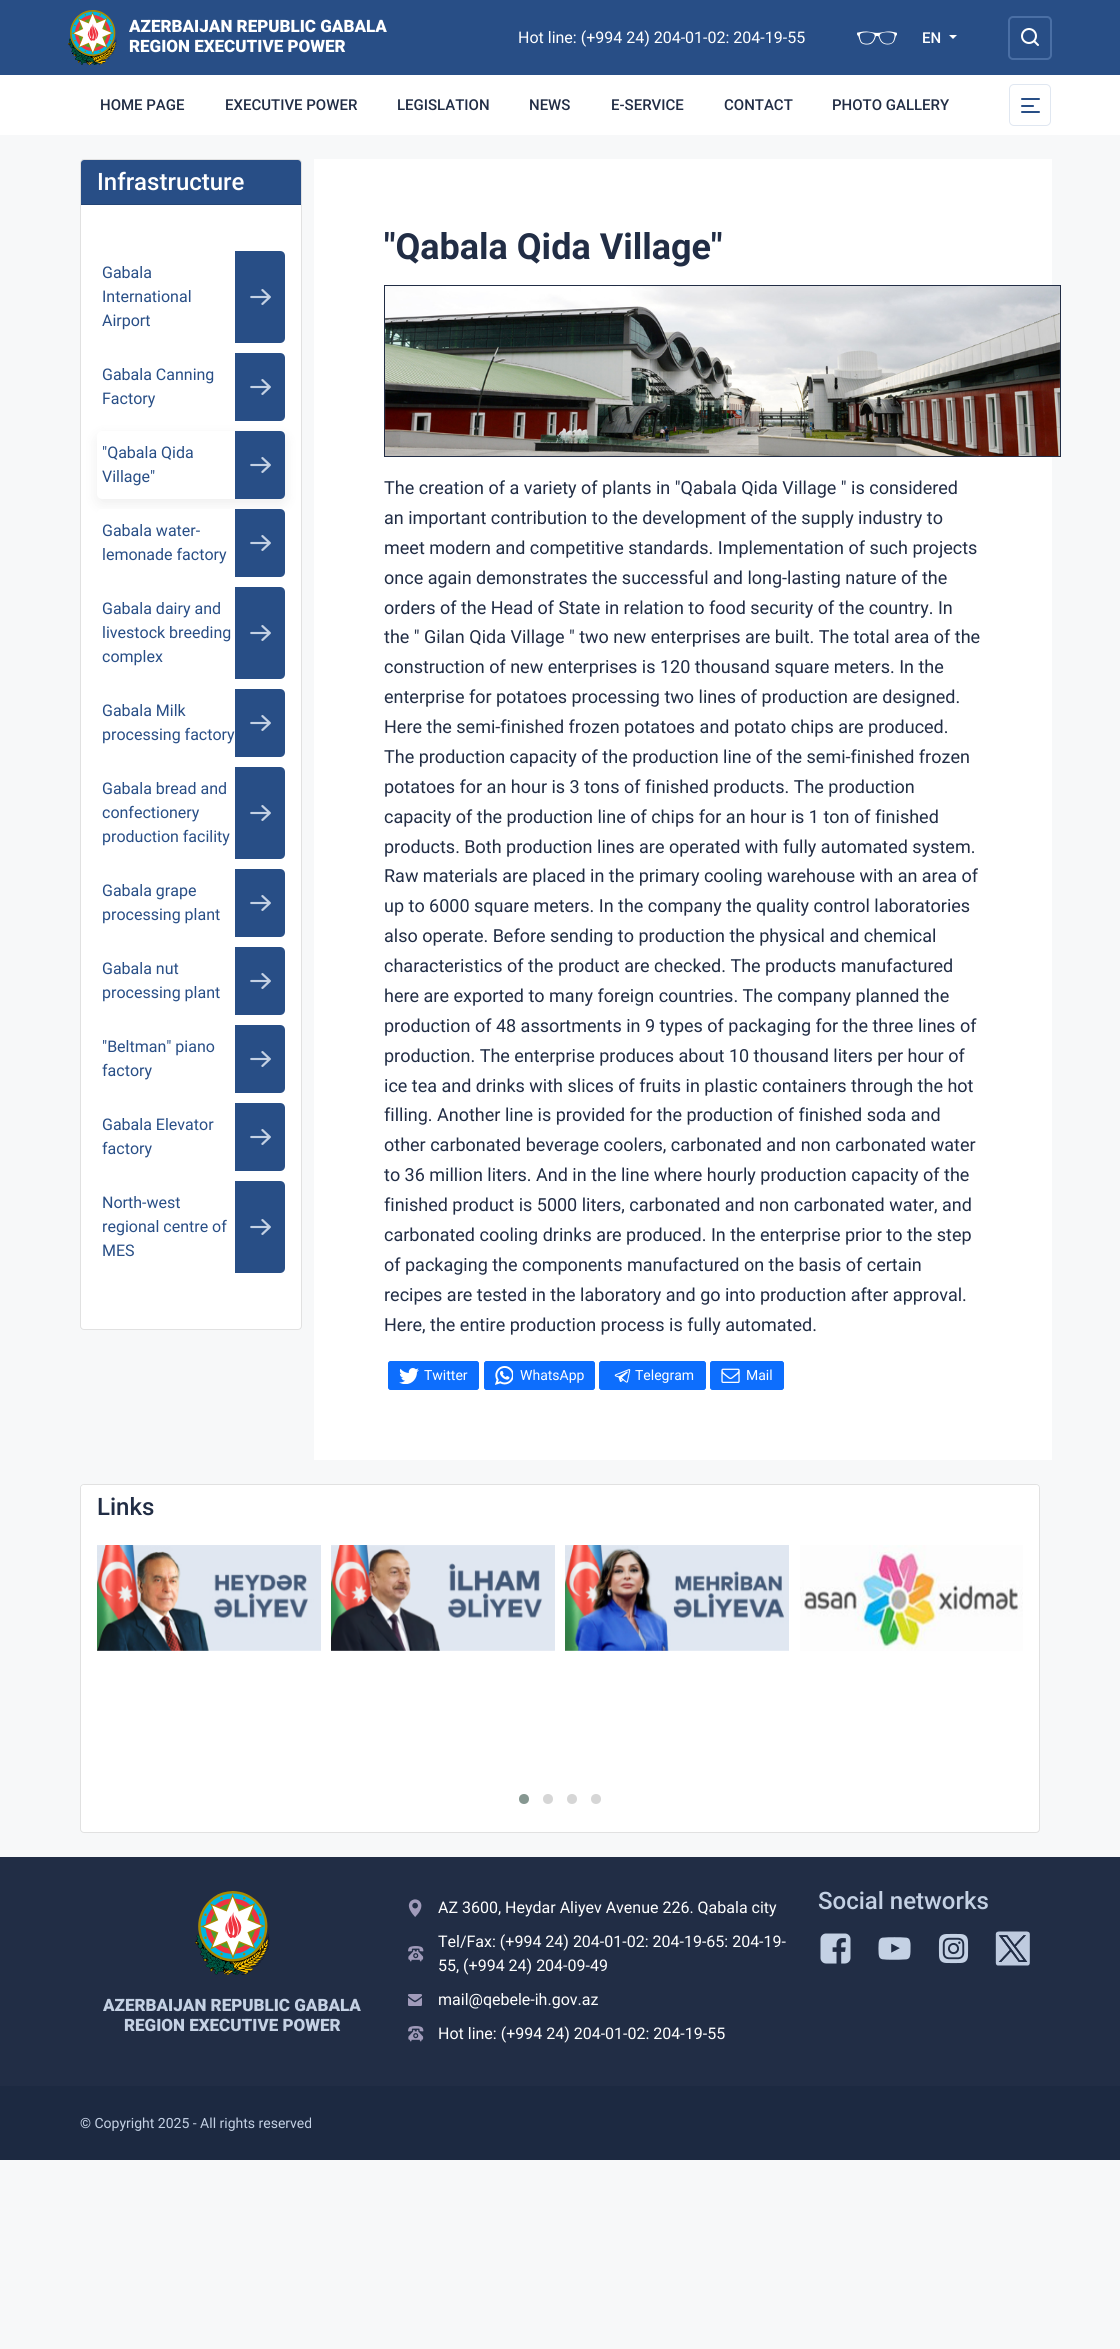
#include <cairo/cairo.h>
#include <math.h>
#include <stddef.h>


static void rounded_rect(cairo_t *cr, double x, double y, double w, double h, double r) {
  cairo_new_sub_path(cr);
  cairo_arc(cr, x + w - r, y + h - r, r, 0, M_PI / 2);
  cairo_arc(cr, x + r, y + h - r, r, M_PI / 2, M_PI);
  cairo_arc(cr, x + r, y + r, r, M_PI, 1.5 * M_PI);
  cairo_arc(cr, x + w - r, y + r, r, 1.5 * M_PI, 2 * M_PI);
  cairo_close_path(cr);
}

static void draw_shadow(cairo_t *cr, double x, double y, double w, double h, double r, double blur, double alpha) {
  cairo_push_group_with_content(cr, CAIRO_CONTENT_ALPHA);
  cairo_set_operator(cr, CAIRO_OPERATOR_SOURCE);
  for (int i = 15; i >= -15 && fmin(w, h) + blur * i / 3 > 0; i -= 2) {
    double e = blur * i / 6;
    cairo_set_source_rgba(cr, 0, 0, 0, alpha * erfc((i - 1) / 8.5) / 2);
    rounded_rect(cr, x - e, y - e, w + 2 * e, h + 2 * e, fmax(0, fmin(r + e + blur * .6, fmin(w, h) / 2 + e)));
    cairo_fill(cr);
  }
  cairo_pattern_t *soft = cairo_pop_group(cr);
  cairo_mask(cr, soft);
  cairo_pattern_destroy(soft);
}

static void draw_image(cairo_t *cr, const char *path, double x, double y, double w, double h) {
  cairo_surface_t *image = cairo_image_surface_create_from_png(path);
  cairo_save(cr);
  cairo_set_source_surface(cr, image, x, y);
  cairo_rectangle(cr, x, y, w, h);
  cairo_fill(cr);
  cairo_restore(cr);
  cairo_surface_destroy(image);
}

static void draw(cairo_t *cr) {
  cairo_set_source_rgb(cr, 247 / 255.0, 248 / 255.0, 249 / 255.0);
  cairo_paint(cr);
  cairo_set_source_rgb(cr, 40 / 255.0, 78 / 255.0, 134 / 255.0);
  cairo_rectangle(cr, 0, 0, 1120, 75);
  cairo_fill(cr);
  draw_image(cr, "images/1.png", 68, 10, 49, 55);
  draw_image(cr, "images/2.png", 857, 31, 40, 14);
  cairo_set_source_rgb(cr, 1, 1, 1);
  cairo_new_path(cr);
  cairo_move_to(cr, 949, 35);
  cairo_line_to(cr, 957, 35);
  cairo_line_to(cr, 953, 39);
  cairo_close_path(cr);
  cairo_fill(cr);
  rounded_rect(cr, 1009, 17, 42, 42, 4);
  cairo_set_source_rgb(cr, 74 / 255.0, 111 / 255.0, 165 / 255.0);
  cairo_stroke(cr);
  draw_image(cr, "images/3.png", 1021, 28, 18, 18);
  cairo_set_source_rgb(cr, 1, 1, 1);
  cairo_rectangle(cr, 0, 75, 1120, 60);
  cairo_fill(cr);
  draw_image(cr, "images/4.png", 1021, 98, 19, 15);
  rounded_rect(cr, 1009.5, 84.5, 41, 41, 4.5);
  cairo_set_source_rgb(cr, 224 / 255.0, 231 / 255.0, 241 / 255.0);
  cairo_set_line_width(cr, 1);
  cairo_stroke(cr);
  cairo_set_source_rgb(cr, 1, 1, 1);
  rounded_rect(cr, 80, 159, 222, 1171, 4);
  cairo_fill(cr);
  rounded_rect(cr, 80.5, 159.5, 221, 1170, 3.5);
  cairo_set_source_rgba(cr, 0, 0, 0, 0.12);
  cairo_stroke(cr);
  cairo_set_source_rgb(cr, 40 / 255.0, 78 / 255.0, 134 / 255.0);
  cairo_new_path(cr);
  cairo_move_to(cr, 84, 160);
  cairo_line_to(cr, 298, 160);
  cairo_curve_to(cr, 299.5, 160, 301, 161.5, 301, 163);
  cairo_line_to(cr, 301, 205);
  cairo_line_to(cr, 81, 205);
  cairo_line_to(cr, 81, 163);
  cairo_curve_to(cr, 81, 161.5, 82.5, 160, 84, 160);
  cairo_close_path(cr);
  cairo_fill(cr);
  cairo_set_source_rgb(cr, 35 / 255.0, 68 / 255.0, 117 / 255.0);
  cairo_rectangle(cr, 81, 204, 220, 1);
  cairo_fill(cr);
  cairo_set_source_rgb(cr, 40 / 255.0, 78 / 255.0, 134 / 255.0);
  cairo_new_path(cr);
  cairo_move_to(cr, 235, 251);
  cairo_line_to(cr, 280, 251);
  cairo_curve_to(cr, 283, 251, 285, 253, 285, 256);
  cairo_line_to(cr, 285, 338);
  cairo_curve_to(cr, 285, 341, 283, 343, 280, 343);
  cairo_line_to(cr, 235, 343);
  cairo_close_path(cr);
  cairo_fill(cr);
  draw_image(cr, "images/5.png", 250, 289, 21, 16);
  cairo_new_path(cr);
  cairo_move_to(cr, 235, 353);
  cairo_line_to(cr, 280, 353);
  cairo_curve_to(cr, 283, 353, 285, 355, 285, 358);
  cairo_line_to(cr, 285, 416);
  cairo_curve_to(cr, 285, 419, 283, 421, 280, 421);
  cairo_line_to(cr, 235, 421);
  cairo_close_path(cr);
  cairo_fill(cr);
  draw_image(cr, "images/5.png", 250, 379, 21, 16);
  cairo_set_source_rgb(cr, 0, 0, 0);
  draw_shadow(cr, 97, 436, 188, 68, 5, 7.5, 0.07);
  cairo_set_source_rgb(cr, 1, 1, 1);
  rounded_rect(cr, 97, 431, 188, 68, 5);
  cairo_fill(cr);
  cairo_set_source_rgb(cr, 40 / 255.0, 78 / 255.0, 134 / 255.0);
  cairo_new_path(cr);
  cairo_move_to(cr, 235, 431);
  cairo_line_to(cr, 280, 431);
  cairo_curve_to(cr, 283, 431, 285, 433, 285, 436);
  cairo_line_to(cr, 285, 494);
  cairo_curve_to(cr, 285, 497, 283, 499, 280, 499);
  cairo_line_to(cr, 235, 499);
  cairo_close_path(cr);
  cairo_fill(cr);
  draw_image(cr, "images/5.png", 250, 457, 21, 16);
  cairo_set_source_rgb(cr, 1, 1, 1);
  rounded_rect(cr, 97, 509, 188, 68, 5);
  cairo_fill(cr);
  cairo_set_source_rgb(cr, 40 / 255.0, 78 / 255.0, 134 / 255.0);
  cairo_new_path(cr);
  cairo_move_to(cr, 235, 509);
  cairo_line_to(cr, 280, 509);
  cairo_curve_to(cr, 283, 509, 285, 511, 285, 514);
  cairo_line_to(cr, 285, 572);
  cairo_curve_to(cr, 285, 575, 283, 577, 280, 577);
  cairo_line_to(cr, 235, 577);
  cairo_close_path(cr);
  cairo_fill(cr);
  draw_image(cr, "images/5.png", 250, 535, 21, 16);
  cairo_new_path(cr);
  cairo_move_to(cr, 235, 587);
  cairo_line_to(cr, 280, 587);
  cairo_curve_to(cr, 283, 587, 285, 589, 285, 592);
  cairo_line_to(cr, 285, 674);
  cairo_curve_to(cr, 285, 677, 283, 679, 280, 679);
  cairo_line_to(cr, 235, 679);
  cairo_close_path(cr);
  cairo_fill(cr);
  draw_image(cr, "images/5.png", 250, 625, 21, 16);
  cairo_new_path(cr);
  cairo_move_to(cr, 235, 689);
  cairo_line_to(cr, 280, 689);
  cairo_curve_to(cr, 283, 689, 285, 691, 285, 694);
  cairo_line_to(cr, 285, 752);
  cairo_curve_to(cr, 285, 755, 283, 757, 280, 757);
  cairo_line_to(cr, 235, 757);
  cairo_close_path(cr);
  cairo_fill(cr);
  draw_image(cr, "images/5.png", 250, 715, 21, 16);
  cairo_new_path(cr);
  cairo_move_to(cr, 235, 767);
  cairo_line_to(cr, 280, 767);
  cairo_curve_to(cr, 283, 767, 285, 769, 285, 772);
  cairo_line_to(cr, 285, 854);
  cairo_curve_to(cr, 285, 857, 283, 859, 280, 859);
  cairo_line_to(cr, 235, 859);
  cairo_close_path(cr);
  cairo_fill(cr);
  draw_image(cr, "images/5.png", 250, 805, 21, 16);
  cairo_new_path(cr);
  cairo_move_to(cr, 235, 869);
  cairo_line_to(cr, 280, 869);
  cairo_curve_to(cr, 283, 869, 285, 871, 285, 874);
  cairo_line_to(cr, 285, 932);
  cairo_curve_to(cr, 285, 935, 283, 937, 280, 937);
  cairo_line_to(cr, 235, 937);
  cairo_close_path(cr);
  cairo_fill(cr);
  draw_image(cr, "images/5.png", 250, 895, 21, 16);
  cairo_new_path(cr);
  cairo_move_to(cr, 235, 947);
  cairo_line_to(cr, 280, 947);
  cairo_curve_to(cr, 283, 947, 285, 949, 285, 952);
  cairo_line_to(cr, 285, 1010);
  cairo_curve_to(cr, 285, 1013, 283, 1015, 280, 1015);
  cairo_line_to(cr, 235, 1015);
  cairo_close_path(cr);
  cairo_fill(cr);
  draw_image(cr, "images/5.png", 250, 973, 21, 16);
  cairo_new_path(cr);
  cairo_move_to(cr, 235, 1025);
  cairo_line_to(cr, 280, 1025);
  cairo_curve_to(cr, 283, 1025, 285, 1027, 285, 1030);
  cairo_line_to(cr, 285, 1088);
  cairo_curve_to(cr, 285, 1091, 283, 1093, 280, 1093);
  cairo_line_to(cr, 235, 1093);
  cairo_close_path(cr);
  cairo_fill(cr);
  draw_image(cr, "images/5.png", 250, 1051, 21, 16);
  cairo_new_path(cr);
  cairo_move_to(cr, 235, 1103);
  cairo_line_to(cr, 280, 1103);
  cairo_curve_to(cr, 283, 1103, 285, 1105, 285, 1108);
  cairo_line_to(cr, 285, 1166);
  cairo_curve_to(cr, 285, 1169, 283, 1171, 280, 1171);
  cairo_line_to(cr, 235, 1171);
  cairo_close_path(cr);
  cairo_fill(cr);
  draw_image(cr, "images/5.png", 250, 1129, 21, 16);
  cairo_new_path(cr);
  cairo_move_to(cr, 235, 1181);
  cairo_line_to(cr, 280, 1181);
  cairo_curve_to(cr, 283, 1181, 285, 1183, 285, 1186);
  cairo_line_to(cr, 285, 1268);
  cairo_curve_to(cr, 285, 1271, 283, 1273, 280, 1273);
  cairo_line_to(cr, 235, 1273);
  cairo_close_path(cr);
  cairo_fill(cr);
  draw_image(cr, "images/5.png", 250, 1219, 21, 16);
  cairo_set_source_rgb(cr, 1, 1, 1);
  cairo_rectangle(cr, 314, 159, 738, 1301);
  cairo_fill(cr);
  cairo_rectangle(cr, 384.5, 285.5, 676, 171);
  cairo_set_source_rgb(cr, 33 / 255.0, 45 / 255.0, 69 / 255.0);
  cairo_stroke(cr);
  draw_image(cr, "images/6.png", 385, 286, 675, 170);
  cairo_set_source_rgb(cr, 13 / 255.0, 110 / 255.0, 253 / 255.0);
  rounded_rect(cr, 388, 1361, 91, 29, 3);
  cairo_fill(cr);
  draw_image(cr, "images/7.png", 399, 1368, 20, 16);
  rounded_rect(cr, 388.5, 1361.5, 90, 28, 2.5);
  cairo_stroke(cr);
  rounded_rect(cr, 484, 1361, 111, 29, 3);
  cairo_fill(cr);
  draw_image(cr, "images/8.png", 495, 1366, 18, 19);
  rounded_rect(cr, 484.5, 1361.5, 110, 28, 2.5);
  cairo_stroke(cr);
  rounded_rect(cr, 599, 1361, 107, 29, 3);
  cairo_fill(cr);
  draw_image(cr, "images/9.png", 614, 1369, 17, 14);
  rounded_rect(cr, 599.5, 1361.5, 106, 28, 2.5);
  cairo_stroke(cr);
  rounded_rect(cr, 710, 1361, 74, 29, 3);
  cairo_fill(cr);
  draw_image(cr, "images/10.png", 721, 1368, 19, 15);
  rounded_rect(cr, 710.5, 1361.5, 73, 28, 2.5);
  cairo_stroke(cr);
  cairo_set_source_rgb(cr, 1, 1, 1);
  rounded_rect(cr, 80, 1484, 960, 349, 4);
  cairo_fill(cr);
  rounded_rect(cr, 80.5, 1484.5, 959, 348, 3.5);
  cairo_set_source_rgba(cr, 0, 0, 0, 0.12);
  cairo_stroke(cr);
  cairo_set_source_rgb(cr, 1, 1, 1);
  cairo_new_path(cr);
  cairo_move_to(cr, 84, 1485);
  cairo_line_to(cr, 1036, 1485);
  cairo_curve_to(cr, 1037.5, 1485, 1039, 1486.5, 1039, 1488);
  cairo_line_to(cr, 1039, 1529);
  cairo_line_to(cr, 81, 1529);
  cairo_line_to(cr, 81, 1488);
  cairo_curve_to(cr, 81, 1486.5, 82.5, 1485, 84, 1485);
  cairo_close_path(cr);
  cairo_fill(cr);
  draw_image(cr, "images/11.png", 97, 1545, 224, 106);
  draw_image(cr, "images/12.png", 331, 1545, 224, 106);
  draw_image(cr, "images/13.png", 565, 1545, 224, 106);
  draw_image(cr, "images/14.png", 800, 1545, 223, 106);
  cairo_set_source_rgb(cr, 134 / 255.0, 151 / 255.0, 145 / 255.0);
  cairo_arc(cr, 524, 1799, 5, 0, 2 * M_PI);
  cairo_fill(cr);
  cairo_set_source_rgb(cr, 214 / 255.0, 214 / 255.0, 214 / 255.0);
  cairo_arc(cr, 548, 1799, 5, 0, 2 * M_PI);
  cairo_fill(cr);
  cairo_arc(cr, 572, 1799, 5, 0, 2 * M_PI);
  cairo_fill(cr);
  cairo_arc(cr, 596, 1799, 5, 0, 2 * M_PI);
  cairo_fill(cr);
  cairo_set_source_rgb(cr, 33 / 255.0, 45 / 255.0, 69 / 255.0);
  cairo_rectangle(cr, 0, 1857, 1120, 229);
  cairo_fill(cr);
  draw_image(cr, "images/15.png", 195, 1891, 75, 84);
  draw_image(cr, "images/16.png", 408, 1899, 14, 18);
  draw_image(cr, "images/17.png", 408, 1946, 16, 16);
  draw_image(cr, "images/18.png", 408, 1994, 14, 12);
  draw_image(cr, "images/17.png", 408, 2026, 16, 16);
  draw_image(cr, "images/19.png", 820, 1933, 31, 31);
  draw_image(cr, "images/20.png", 878, 1937, 33, 23);
  draw_image(cr, "images/21.png", 938, 1933, 31, 31);
  draw_image(cr, "images/22.png", 995, 1931, 35, 35);
  cairo_set_source_rgb(cr, 28 / 255.0, 41 / 255.0, 65 / 255.0);
  cairo_rectangle(cr, 0, 2086, 1120, 74);
  cairo_fill(cr);
  cairo_select_font_face(cr, "Roboto Black", CAIRO_FONT_SLANT_NORMAL, CAIRO_FONT_WEIGHT_NORMAL);
  cairo_set_font_size(cr, 17);
  cairo_set_source_rgb(cr, 1, 1, 1);
  cairo_move_to(cr, 129, 32);
  cairo_show_text(cr, "AZERBAIJAN REPUBLIC GABALA");
  cairo_move_to(cr, 129, 52);
  cairo_show_text(cr, "REGION EXECUTIVE POWER");
  cairo_select_font_face(cr, "Roboto", CAIRO_FONT_SLANT_NORMAL, CAIRO_FONT_WEIGHT_NORMAL);
  cairo_set_font_size(cr, 16);
  cairo_move_to(cr, 518, 43);
  cairo_show_text(cr, "Hot line: (+994 24) 204-01-02: 204-19-55");
  cairo_select_font_face(cr, "Roboto Medium", CAIRO_FONT_SLANT_NORMAL, CAIRO_FONT_WEIGHT_NORMAL);
  cairo_set_font_size(cr, 15);
  cairo_move_to(cr, 922, 43);
  cairo_show_text(cr, "EN");
  cairo_set_source_rgb(cr, 33 / 255.0, 45 / 255.0, 69 / 255.0);
  cairo_move_to(cr, 100, 110);
  cairo_show_text(cr, "HOME PAGE");
  cairo_move_to(cr, 225, 110);
  cairo_show_text(cr, "EXECUTIVE POWER");
  cairo_move_to(cr, 397, 110);
  cairo_show_text(cr, "LEGISLATION");
  cairo_move_to(cr, 529, 110);
  cairo_show_text(cr, "NEWS");
  cairo_move_to(cr, 611, 110);
  cairo_show_text(cr, "E-SERVICE");
  cairo_move_to(cr, 724, 110);
  cairo_show_text(cr, "CONTACT");
  cairo_move_to(cr, 832, 110);
  cairo_show_text(cr, "PHOTO GALLERY");
  cairo_set_font_size(cr, 24);
  cairo_set_source_rgb(cr, 1, 1, 1);
  cairo_move_to(cr, 97, 190);
  cairo_show_text(cr, "Infrastructure");
  cairo_select_font_face(cr, "Roboto", CAIRO_FONT_SLANT_NORMAL, CAIRO_FONT_WEIGHT_NORMAL);
  cairo_set_font_size(cr, 16);
  cairo_set_source_rgb(cr, 40 / 255.0, 78 / 255.0, 134 / 255.0);
  cairo_move_to(cr, 102, 278);
  cairo_show_text(cr, "Gabala");
  cairo_move_to(cr, 102, 302);
  cairo_show_text(cr, "International");
  cairo_move_to(cr, 102, 326);
  cairo_show_text(cr, "Airport");
  cairo_move_to(cr, 102, 380);
  cairo_show_text(cr, "Gabala Canning");
  cairo_move_to(cr, 102, 404);
  cairo_show_text(cr, "Factory");
  cairo_move_to(cr, 102, 458);
  cairo_show_text(cr, "\"Qabala Qida");
  cairo_move_to(cr, 102, 482);
  cairo_show_text(cr, "Village\"");
  cairo_move_to(cr, 102, 536);
  cairo_show_text(cr, "Gabala water-");
  cairo_move_to(cr, 102, 560);
  cairo_show_text(cr, "lemonade factory");
  cairo_move_to(cr, 102, 614);
  cairo_show_text(cr, "Gabala dairy and");
  cairo_move_to(cr, 102, 638);
  cairo_show_text(cr, "livestock breeding");
  cairo_move_to(cr, 102, 662);
  cairo_show_text(cr, "complex");
  cairo_move_to(cr, 102, 716);
  cairo_show_text(cr, "Gabala Milk");
  cairo_move_to(cr, 102, 740);
  cairo_show_text(cr, "processing factory");
  cairo_move_to(cr, 102, 794);
  cairo_show_text(cr, "Gabala bread and");
  cairo_move_to(cr, 102, 818);
  cairo_show_text(cr, "confectionery");
  cairo_move_to(cr, 102, 842);
  cairo_show_text(cr, "production facility");
  cairo_move_to(cr, 102, 896);
  cairo_show_text(cr, "Gabala grape");
  cairo_move_to(cr, 102, 920);
  cairo_show_text(cr, "processing plant");
  cairo_move_to(cr, 102, 974);
  cairo_show_text(cr, "Gabala nut");
  cairo_move_to(cr, 102, 998);
  cairo_show_text(cr, "processing plant");
  cairo_move_to(cr, 102, 1052);
  cairo_show_text(cr, "\"Beltman\" piano");
  cairo_move_to(cr, 102, 1076);
  cairo_show_text(cr, "factory");
  cairo_move_to(cr, 102, 1130);
  cairo_show_text(cr, "Gabala Elevator");
  cairo_move_to(cr, 102, 1154);
  cairo_show_text(cr, "factory");
  cairo_move_to(cr, 102, 1208);
  cairo_show_text(cr, "North-west");
  cairo_move_to(cr, 102, 1232);
  cairo_show_text(cr, "regional centre of");
  cairo_move_to(cr, 102, 1256);
  cairo_show_text(cr, "MES");
  cairo_select_font_face(cr, "Roboto", CAIRO_FONT_SLANT_NORMAL, CAIRO_FONT_WEIGHT_BOLD);
  cairo_set_font_size(cr, 36);
  cairo_set_source_rgb(cr, 33 / 255.0, 45 / 255.0, 69 / 255.0);
  cairo_move_to(cr, 384, 259);
  cairo_show_text(cr, "\"Qabala Qida Village\"");
  cairo_select_font_face(cr, "Roboto", CAIRO_FONT_SLANT_NORMAL, CAIRO_FONT_WEIGHT_NORMAL);
  cairo_set_font_size(cr, 18);
  cairo_move_to(cr, 384, 494);
  cairo_show_text(cr, "The creation of a variety of plants in \"Qabala Qida Village \" is considered");
  cairo_move_to(cr, 384, 524);
  cairo_show_text(cr, "an important contribution to the development of the supply industry to");
  cairo_move_to(cr, 384, 554);
  cairo_show_text(cr, "meet modern and competitive standards. Implementation of such projects");
  cairo_move_to(cr, 384, 584);
  cairo_show_text(cr, "once again demonstrates the successful and long-lasting nature of the");
  cairo_move_to(cr, 384, 614);
  cairo_show_text(cr, "orders of the Head of State in relation to food security of the country. In");
  cairo_move_to(cr, 384, 643);
  cairo_show_text(cr, "the \" Gilan Qida Village \" two new enterprises are built. The total area of the");
  cairo_move_to(cr, 384, 673);
  cairo_show_text(cr, "construction of new enterprises is 120 thousand square meters. In the");
  cairo_move_to(cr, 384, 703);
  cairo_show_text(cr, "enterprise for potatoes processing two lines of production are designed.");
  cairo_move_to(cr, 384, 733);
  cairo_show_text(cr, "Here the semi-finished frozen potatoes and potato chips are produced.");
  cairo_move_to(cr, 384, 763);
  cairo_show_text(cr, "The production capacity of the production line of the semi-finished frozen");
  cairo_move_to(cr, 384, 793);
  cairo_show_text(cr, "potatoes for an hour is 3 tons of finished products. The production");
  cairo_move_to(cr, 384, 823);
  cairo_show_text(cr, "capacity of the production line of chips for an hour is 1 ton of finished");
  cairo_move_to(cr, 384, 853);
  cairo_show_text(cr, "products. Both production lines are operated with fully automated system.");
  cairo_move_to(cr, 384, 882);
  cairo_show_text(cr, "Raw materials are placed in the primary cooling warehouse with an area of");
  cairo_move_to(cr, 384, 912);
  cairo_show_text(cr, "up to 6000 square meters. In the company the quality control laboratories");
  cairo_move_to(cr, 384, 942);
  cairo_show_text(cr, "also operate. Before sending to production the physical and chemical");
  cairo_move_to(cr, 384, 972);
  cairo_show_text(cr, "characteristics of the product are checked. The products manufactured");
  cairo_move_to(cr, 384, 1002);
  cairo_show_text(cr, "here are exported to many foreign countries. The company planned the");
  cairo_move_to(cr, 384, 1032);
  cairo_show_text(cr, "production of 48 assortments in 9 types of packaging for the three lines of");
  cairo_move_to(cr, 384, 1062);
  cairo_show_text(cr, "production. The enterprise produces about 10 thousand liters per hour of");
  cairo_move_to(cr, 384, 1092);
  cairo_show_text(cr, "ice tea and drinks with slices of fruits in plastic containers through the hot");
  cairo_move_to(cr, 384, 1121);
  cairo_show_text(cr, "filling. Another line is provided for the production of finished soda and");
  cairo_move_to(cr, 384, 1151);
  cairo_show_text(cr, "other carbonated beverage coolers, carbonated and non carbonated water");
  cairo_move_to(cr, 384, 1181);
  cairo_show_text(cr, "to 36 million liters. And in the line where hourly production capacity of the");
  cairo_move_to(cr, 384, 1211);
  cairo_show_text(cr, "finished product is 5000 liters, carbonated and non carbonated water, and");
  cairo_move_to(cr, 384, 1241);
  cairo_show_text(cr, "carbonated cooling drinks are produced. In the enterprise prior to the step");
  cairo_move_to(cr, 384, 1271);
  cairo_show_text(cr, "of packaging the components manufactured on the basis of certain");
  cairo_move_to(cr, 384, 1301);
  cairo_show_text(cr, "recipes are tested in the laboratory and go into production after approval.");
  cairo_move_to(cr, 384, 1331);
  cairo_show_text(cr, "Here, the entire production process is fully automated.");
  cairo_set_font_size(cr, 14);
  cairo_set_source_rgb(cr, 1, 1, 1);
  cairo_move_to(cr, 424, 1380);
  cairo_show_text(cr, "Twitter");
  cairo_move_to(cr, 520, 1380);
  cairo_show_text(cr, "WhatsApp");
  cairo_move_to(cr, 635, 1380);
  cairo_show_text(cr, "Telegram");
  cairo_move_to(cr, 746, 1380);
  cairo_show_text(cr, "Mail");
  cairo_select_font_face(cr, "Roboto Medium", CAIRO_FONT_SLANT_NORMAL, CAIRO_FONT_WEIGHT_NORMAL);
  cairo_set_font_size(cr, 24);
  cairo_set_source_rgb(cr, 33 / 255.0, 45 / 255.0, 69 / 255.0);
  cairo_move_to(cr, 97, 1515);
  cairo_show_text(cr, "Links");
  cairo_select_font_face(cr, "Roboto Black", CAIRO_FONT_SLANT_NORMAL, CAIRO_FONT_WEIGHT_NORMAL);
  cairo_set_font_size(cr, 17);
  cairo_set_source_rgb(cr, 196 / 255.0, 209 / 255.0, 228 / 255.0);
  cairo_move_to(cr, 103, 2011);
  cairo_show_text(cr, "AZERBAIJAN REPUBLIC GABALA");
  cairo_move_to(cr, 124, 2031);
  cairo_show_text(cr, "REGION EXECUTIVE POWER");
  cairo_select_font_face(cr, "Roboto", CAIRO_FONT_SLANT_NORMAL, CAIRO_FONT_WEIGHT_NORMAL);
  cairo_set_font_size(cr, 16);
  cairo_set_source_rgb(cr, 1, 1, 1);
  cairo_move_to(cr, 438, 1913);
  cairo_show_text(cr, "AZ 3600, Heydar Aliyev Avenue 226. Qabala city");
  cairo_move_to(cr, 438, 1947);
  cairo_show_text(cr, "Tel/Fax: (+994 24) 204-01-02: 204-19-65: 204-19-");
  cairo_move_to(cr, 438, 1971);
  cairo_show_text(cr, "55, (+994 24) 204-09-49");
  cairo_move_to(cr, 438, 2005);
  cairo_show_text(cr, "mail@qebele-ih.gov.az");
  cairo_move_to(cr, 438, 2039);
  cairo_show_text(cr, "Hot line: (+994 24) 204-01-02: 204-19-55");
  cairo_select_font_face(cr, "Roboto Medium", CAIRO_FONT_SLANT_NORMAL, CAIRO_FONT_WEIGHT_NORMAL);
  cairo_set_font_size(cr, 24);
  cairo_set_source_rgb(cr, 196 / 255.0, 209 / 255.0, 228 / 255.0);
  cairo_move_to(cr, 818, 1909);
  cairo_show_text(cr, "Social networks");
  cairo_select_font_face(cr, "Roboto", CAIRO_FONT_SLANT_NORMAL, CAIRO_FONT_WEIGHT_NORMAL);
  cairo_set_font_size(cr, 14);
  cairo_move_to(cr, 80, 2128);
  cairo_show_text(cr, "© Copyright 2025 - All rights reserved");
}

int main(void) {
  cairo_surface_t *surface = cairo_image_surface_create(CAIRO_FORMAT_RGB24, 1120, 2349);
  cairo_t *cr = cairo_create(surface);
  cairo_font_options_t *options = cairo_font_options_create();
  cairo_font_options_set_hint_metrics(options, CAIRO_HINT_METRICS_OFF);
  cairo_font_options_set_hint_style(options, CAIRO_HINT_STYLE_NONE);
  cairo_set_font_options(cr, options);
  cairo_set_miter_limit(cr, 4);
  draw(cr);
  cairo_surface_write_to_png(surface, "out.png");
  cairo_font_options_destroy(options);
  cairo_destroy(cr);
  cairo_surface_destroy(surface);
  return 0;
}
